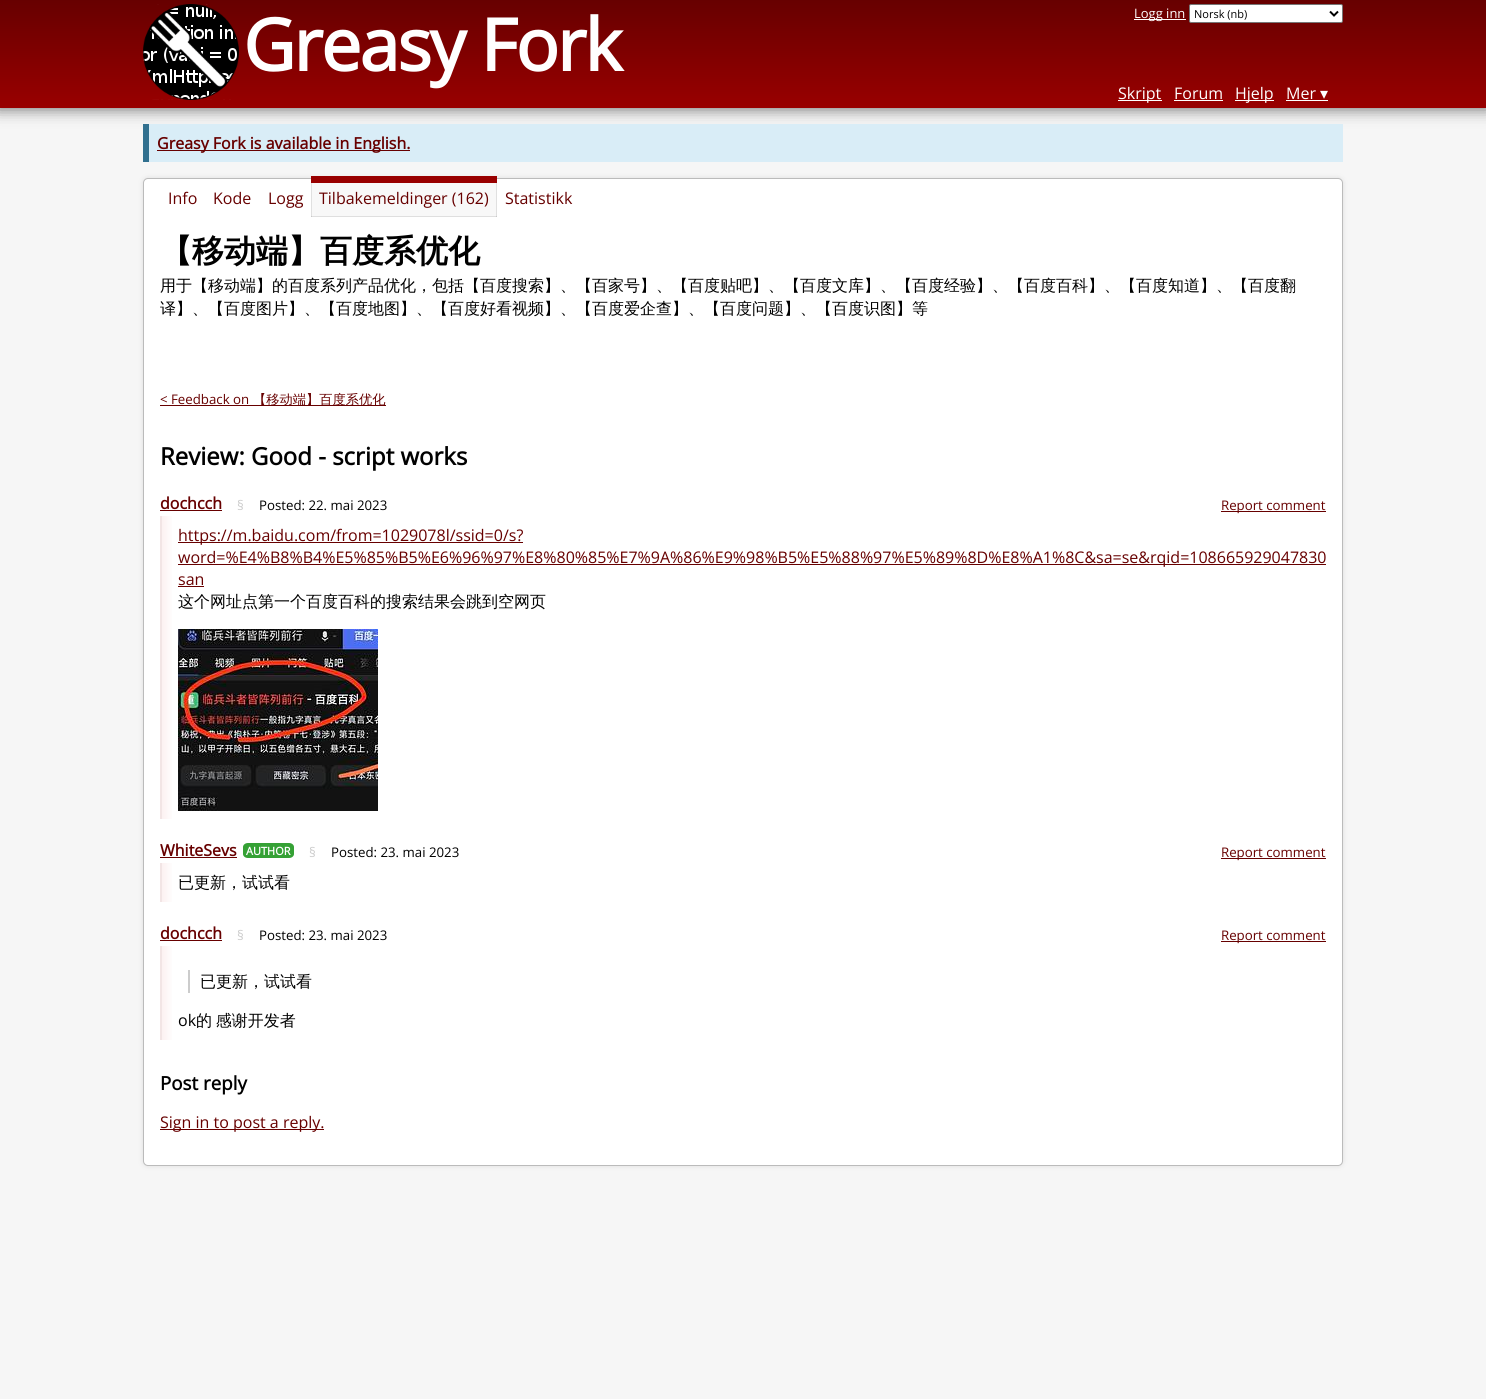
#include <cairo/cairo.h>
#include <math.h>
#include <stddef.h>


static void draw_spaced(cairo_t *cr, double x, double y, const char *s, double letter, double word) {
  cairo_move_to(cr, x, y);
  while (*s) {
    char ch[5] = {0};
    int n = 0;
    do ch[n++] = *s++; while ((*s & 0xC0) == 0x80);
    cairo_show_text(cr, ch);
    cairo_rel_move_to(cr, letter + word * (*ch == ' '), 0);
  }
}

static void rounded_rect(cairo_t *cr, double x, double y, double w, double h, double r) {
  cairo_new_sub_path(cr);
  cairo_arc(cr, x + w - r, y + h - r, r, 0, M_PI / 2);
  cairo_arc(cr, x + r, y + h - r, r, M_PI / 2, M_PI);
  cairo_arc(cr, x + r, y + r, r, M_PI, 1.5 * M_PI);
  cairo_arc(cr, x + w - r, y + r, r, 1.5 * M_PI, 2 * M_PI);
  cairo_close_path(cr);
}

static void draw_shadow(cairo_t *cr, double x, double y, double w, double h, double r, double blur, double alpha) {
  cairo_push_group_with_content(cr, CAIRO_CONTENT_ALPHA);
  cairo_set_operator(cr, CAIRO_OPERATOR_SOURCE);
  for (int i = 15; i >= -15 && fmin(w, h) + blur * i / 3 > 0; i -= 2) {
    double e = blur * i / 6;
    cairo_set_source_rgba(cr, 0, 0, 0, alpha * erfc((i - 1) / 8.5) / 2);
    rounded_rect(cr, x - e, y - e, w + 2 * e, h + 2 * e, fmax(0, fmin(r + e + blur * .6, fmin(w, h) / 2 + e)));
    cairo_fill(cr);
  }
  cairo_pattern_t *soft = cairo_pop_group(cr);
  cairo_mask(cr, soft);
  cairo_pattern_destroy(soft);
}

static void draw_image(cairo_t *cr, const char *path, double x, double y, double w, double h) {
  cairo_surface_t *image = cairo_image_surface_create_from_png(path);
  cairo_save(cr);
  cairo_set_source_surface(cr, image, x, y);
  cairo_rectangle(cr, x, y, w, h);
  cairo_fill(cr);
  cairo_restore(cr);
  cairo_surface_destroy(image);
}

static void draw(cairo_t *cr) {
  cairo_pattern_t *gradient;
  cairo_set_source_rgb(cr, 246 / 255.0, 246 / 255.0, 246 / 255.0);
  cairo_paint(cr);
  cairo_set_source_rgb(cr, 0, 0, 0);
  draw_shadow(cr, -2, -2, 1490, 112, 0, 7.5, 0.5);
  gradient = cairo_pattern_create_linear(743, 0, 743, 108);
  cairo_pattern_add_color_stop_rgba(gradient, 0, 103 / 255.0, 0, 0, 1);
  cairo_pattern_add_color_stop_rgba(gradient, 1, 153 / 255.0, 0, 0, 1);
  cairo_set_source(cr, gradient);
  cairo_pattern_destroy(gradient);
  cairo_rectangle(cr, 0, 0, 1486, 108);
  cairo_fill(cr);
  draw_image(cr, "images/1.png", 143, 4, 96, 96);
  cairo_set_source_rgb(cr, 1, 1, 1);
  cairo_rectangle(cr, 1134, 19, 52, 1);
  cairo_fill(cr);
  rounded_rect(cr, 1189.5, 4.5, 153, 18, 1.5);
  cairo_fill_preserve(cr);
  cairo_set_source_rgb(cr, 118 / 255.0, 118 / 255.0, 118 / 255.0);
  cairo_set_line_width(cr, 1);
  cairo_stroke(cr);
  cairo_new_path(cr);
  cairo_move_to(cr, 1330, 11.5);
  cairo_line_to(cr, 1334, 15.5);
  cairo_line_to(cr, 1338, 11.5);
  cairo_set_source_rgb(cr, 0, 0, 0);
  cairo_set_line_width(cr, 2);
  cairo_stroke(cr);
  cairo_set_source_rgb(cr, 1, 1, 1);
  cairo_rectangle(cr, 1118, 100, 44, 1);
  cairo_fill(cr);
  cairo_rectangle(cr, 1174, 100, 49, 1);
  cairo_fill(cr);
  cairo_rectangle(cr, 1235, 100, 39, 1);
  cairo_fill(cr);
  cairo_rectangle(cr, 1286, 100, 42, 1);
  cairo_fill(cr);
  cairo_set_source_rgb(cr, 217 / 255.0, 237 / 255.0, 247 / 255.0);
  cairo_rectangle(cr, 149, 124, 1194, 38);
  cairo_fill(cr);
  cairo_set_source_rgb(cr, 49 / 255.0, 112 / 255.0, 143 / 255.0);
  cairo_rectangle(cr, 143, 124, 6, 38);
  cairo_fill(cr);
  cairo_set_source_rgb(cr, 103 / 255.0, 0, 0);
  cairo_rectangle(cr, 157, 150, 253, 1);
  cairo_fill(cr);
  cairo_set_source_rgb(cr, 221 / 255.0, 221 / 255.0, 221 / 255.0);
  draw_shadow(cr, 143, 178, 1200, 988, 5, 2.5, 1);
  cairo_set_source_rgb(cr, 1, 1, 1);
  rounded_rect(cr, 143.5, 178.5, 1199, 987, 4.5);
  cairo_fill_preserve(cr);
  cairo_set_source_rgb(cr, 187 / 255.0, 187 / 255.0, 187 / 255.0);
  cairo_set_line_width(cr, 1);
  cairo_stroke(cr);
  cairo_set_source_rgba(cr, 0, 0, 0, 0.03);
  cairo_rectangle(cr, 311, 183, 186, 33);
  cairo_fill(cr);
  cairo_set_source_rgb(cr, 223 / 255.0, 223 / 255.0, 223 / 255.0);
  cairo_rectangle(cr, 311, 216, 186, 1);
  cairo_fill(cr);
  cairo_set_source_rgba(cr, 0, 0, 0, 0.1);
  cairo_rectangle(cr, 496, 183, 1, 34);
  cairo_fill(cr);
  cairo_rectangle(cr, 311, 183, 1, 34);
  cairo_fill(cr);
  cairo_set_source_rgb(cr, 153 / 255.0, 0, 0);
  cairo_rectangle(cr, 311, 176, 186, 7);
  cairo_fill(cr);
  cairo_set_source_rgb(cr, 103 / 255.0, 0, 0);
  cairo_rectangle(cr, 160, 405, 226, 1);
  cairo_fill(cr);
  cairo_rectangle(cr, 160, 510, 62, 1);
  cairo_fill(cr);
  cairo_rectangle(cr, 1221, 511, 105, 1);
  cairo_fill(cr);
  gradient = cairo_pattern_create_linear(162, 668, 1326, 668);
  cairo_pattern_add_color_stop_rgba(gradient, 0, 252 / 255.0, 241 / 255.0, 241 / 255.0, 1);
  cairo_pattern_add_color_stop_rgba(gradient, 0.01, 1, 1, 1, 1);
  cairo_set_source(cr, gradient);
  cairo_pattern_destroy(gradient);
  cairo_rectangle(cr, 162, 516, 10, 303);
  cairo_fill(cr);
  cairo_set_source_rgb(cr, 242 / 255.0, 229 / 255.0, 229 / 255.0);
  cairo_rectangle(cr, 160, 516, 2, 303);
  cairo_fill(cr);
  cairo_set_source_rgb(cr, 103 / 255.0, 0, 0);
  cairo_rectangle(cr, 178, 542, 345, 1);
  cairo_fill(cr);
  cairo_rectangle(cr, 178, 564, 1148, 1);
  cairo_fill(cr);
  cairo_rectangle(cr, 178, 586, 26, 1);
  cairo_fill(cr);
  draw_image(cr, "images/2.png", 178, 629, 200, 182);
  cairo_rectangle(cr, 160, 857, 77, 1);
  cairo_fill(cr);
  cairo_set_source_rgb(cr, 53 / 255.0, 161 / 255.0, 53 / 255.0);
  cairo_new_path(cr);
  cairo_move_to(cr, 248, 843);
  cairo_line_to(cr, 289, 843);
  cairo_curve_to(cr, 292, 843, 294, 845, 294, 847);
  cairo_line_to(cr, 294, 854);
  cairo_curve_to(cr, 294, 856, 292, 858, 289, 858);
  cairo_line_to(cr, 248, 858);
  cairo_curve_to(cr, 245, 858, 243, 856, 243, 854);
  cairo_line_to(cr, 243, 847);
  cairo_curve_to(cr, 243, 845, 245, 843, 248, 843);
  cairo_close_path(cr);
  cairo_fill(cr);
  cairo_set_source_rgb(cr, 103 / 255.0, 0, 0);
  cairo_rectangle(cr, 1221, 858, 105, 1);
  cairo_fill(cr);
  gradient = cairo_pattern_create_linear(162, 883, 1326, 883);
  cairo_pattern_add_color_stop_rgba(gradient, 0, 252 / 255.0, 241 / 255.0, 241 / 255.0, 1);
  cairo_pattern_add_color_stop_rgba(gradient, 0.01, 1, 1, 1, 1);
  cairo_set_source(cr, gradient);
  cairo_pattern_destroy(gradient);
  cairo_rectangle(cr, 162, 863, 10, 39);
  cairo_fill(cr);
  cairo_set_source_rgb(cr, 242 / 255.0, 229 / 255.0, 229 / 255.0);
  cairo_rectangle(cr, 160, 863, 2, 39);
  cairo_fill(cr);
  cairo_set_source_rgb(cr, 103 / 255.0, 0, 0);
  cairo_rectangle(cr, 160, 940, 62, 1);
  cairo_fill(cr);
  cairo_rectangle(cr, 1221, 941, 105, 1);
  cairo_fill(cr);
  gradient = cairo_pattern_create_linear(162, 993, 1326, 993);
  cairo_pattern_add_color_stop_rgba(gradient, 0, 252 / 255.0, 241 / 255.0, 241 / 255.0, 1);
  cairo_pattern_add_color_stop_rgba(gradient, 0.01, 1, 1, 1, 1);
  cairo_set_source(cr, gradient);
  cairo_pattern_destroy(gradient);
  cairo_rectangle(cr, 162, 946, 10, 94);
  cairo_fill(cr);
  cairo_set_source_rgb(cr, 242 / 255.0, 229 / 255.0, 229 / 255.0);
  cairo_rectangle(cr, 160, 946, 2, 94);
  cairo_fill(cr);
  cairo_set_source_rgb(cr, 204 / 255.0, 204 / 255.0, 204 / 255.0);
  cairo_rectangle(cr, 188, 970, 2, 23);
  cairo_fill(cr);
  cairo_set_source_rgb(cr, 103 / 255.0, 0, 0);
  cairo_rectangle(cr, 160, 1129, 164, 1);
  cairo_fill(cr);
  cairo_select_font_face(cr, "Open Sans", CAIRO_FONT_SLANT_NORMAL, CAIRO_FONT_WEIGHT_BOLD);
  cairo_set_font_size(cr, 72);
  cairo_set_source_rgb(cr, 1, 1, 1);
  draw_spaced(cr, 243, 71, "Greasy Fork", -2, 0);
  cairo_select_font_face(cr, "Open Sans", CAIRO_FONT_SLANT_NORMAL, CAIRO_FONT_WEIGHT_NORMAL);
  cairo_set_font_size(cr, 13);
  cairo_move_to(cr, 1134, 18);
  cairo_show_text(cr, "Logg inn");
  cairo_set_font_size(cr, 11);
  cairo_set_source_rgb(cr, 0, 0, 0);
  cairo_move_to(cr, 1194, 18);
  cairo_show_text(cr, "Norsk (nb)");
  cairo_set_font_size(cr, 16);
  cairo_set_source_rgb(cr, 1, 1, 1);
  cairo_move_to(cr, 1118, 99);
  cairo_show_text(cr, "Skript");
  cairo_move_to(cr, 1174, 99);
  cairo_show_text(cr, "Forum");
  cairo_move_to(cr, 1235, 99);
  cairo_show_text(cr, "Hjelp");
  cairo_move_to(cr, 1286, 99);
  cairo_show_text(cr, "Mer");
  cairo_select_font_face(cr, "DejaVu Sans", CAIRO_FONT_SLANT_NORMAL, CAIRO_FONT_WEIGHT_NORMAL);
  cairo_move_to(cr, 1320, 99);
  cairo_show_text(cr, "▾");
  cairo_select_font_face(cr, "Open Sans", CAIRO_FONT_SLANT_NORMAL, CAIRO_FONT_WEIGHT_BOLD);
  cairo_set_source_rgb(cr, 103 / 255.0, 0, 0);
  cairo_move_to(cr, 157, 149);
  cairo_show_text(cr, "Greasy Fork is available in English.");
  cairo_select_font_face(cr, "Open Sans", CAIRO_FONT_SLANT_NORMAL, CAIRO_FONT_WEIGHT_NORMAL);
  cairo_move_to(cr, 168, 204);
  cairo_show_text(cr, "Info");
  cairo_move_to(cr, 213, 204);
  cairo_show_text(cr, "Kode");
  cairo_move_to(cr, 268, 204);
  cairo_show_text(cr, "Logg");
  cairo_move_to(cr, 319, 204);
  cairo_show_text(cr, "Tilbakemeldinger (162)");
  cairo_move_to(cr, 505, 204);
  cairo_show_text(cr, "Statistikk");
  cairo_select_font_face(cr, "WenQuanYi Zen Hei", CAIRO_FONT_SLANT_NORMAL, CAIRO_FONT_WEIGHT_BOLD);
  cairo_set_font_size(cr, 32);
  cairo_set_source_rgb(cr, 0, 0, 0);
  cairo_move_to(cr, 160, 262);
  cairo_show_text(cr, "【移动端】百度系优化");
  cairo_select_font_face(cr, "WenQuanYi Zen Hei Medium", CAIRO_FONT_SLANT_NORMAL, CAIRO_FONT_WEIGHT_NORMAL);
  cairo_set_font_size(cr, 16);
  cairo_move_to(cr, 160, 291);
  cairo_show_text(cr, "用于【移动端】的百度系列产品优化，包括【百度搜索】、【百家号】、【百度贴吧】、【百度文库】、【百度经验】、【百度百科】、【百度知道】、【百度翻");
  cairo_move_to(cr, 160, 314);
  cairo_show_text(cr, "译】、【百度图片】、【百度地图】、【百度好看视频】、【百度爱企查】、【百度问题】、【百度识图】等");
  cairo_select_font_face(cr, "Open Sans", CAIRO_FONT_SLANT_NORMAL, CAIRO_FONT_WEIGHT_NORMAL);
  cairo_set_font_size(cr, 13.25);
  cairo_set_source_rgb(cr, 103 / 255.0, 0, 0);
  cairo_move_to(cr, 160, 404);
  cairo_show_text(cr, "< Feedback on");
  cairo_select_font_face(cr, "WenQuanYi Zen Hei Medium", CAIRO_FONT_SLANT_NORMAL, CAIRO_FONT_WEIGHT_NORMAL);
  cairo_move_to(cr, 253, 404);
  cairo_show_text(cr, "【移动端】百度系优化");
  cairo_select_font_face(cr, "Open Sans", CAIRO_FONT_SLANT_NORMAL, CAIRO_FONT_WEIGHT_BOLD);
  cairo_set_font_size(cr, 24);
  cairo_set_source_rgb(cr, 0, 0, 0);
  cairo_move_to(cr, 160, 465);
  cairo_show_text(cr, "Review: Good - script works");
  cairo_set_font_size(cr, 16);
  cairo_set_source_rgb(cr, 103 / 255.0, 0, 0);
  cairo_move_to(cr, 160, 509);
  cairo_show_text(cr, "dochcch");
  cairo_select_font_face(cr, "Open Sans", CAIRO_FONT_SLANT_NORMAL, CAIRO_FONT_WEIGHT_NORMAL);
  cairo_set_font_size(cr, 13.25);
  cairo_set_source_rgb(cr, 204 / 255.0, 204 / 255.0, 204 / 255.0);
  cairo_move_to(cr, 237, 510);
  cairo_show_text(cr, "§");
  cairo_set_source_rgb(cr, 0, 0, 0);
  cairo_move_to(cr, 259, 510);
  cairo_show_text(cr, "Posted: 22. mai 2023");
  cairo_set_source_rgb(cr, 103 / 255.0, 0, 0);
  cairo_move_to(cr, 1221, 510);
  cairo_show_text(cr, "Report comment");
  cairo_set_font_size(cr, 16);
  cairo_move_to(cr, 178, 541);
  cairo_show_text(cr, "https://m.baidu.com/from=1029078l/ssid=0/s?");
  cairo_move_to(cr, 178, 563);
  cairo_show_text(cr, "word=%E4%B8%B4%E5%85%B5%E6%96%97%E8%80%85%E7%9A%86%E9%98%B5%E5%88%97%E5%89%8D%E8%A1%8C&sa=se&rqid=108665929047830");
  cairo_move_to(cr, 178, 585);
  cairo_show_text(cr, "san");
  cairo_select_font_face(cr, "WenQuanYi Zen Hei Medium", CAIRO_FONT_SLANT_NORMAL, CAIRO_FONT_WEIGHT_NORMAL);
  cairo_set_source_rgb(cr, 0, 0, 0);
  cairo_move_to(cr, 178, 607);
  cairo_show_text(cr, "这个网址点第一个百度百科的搜索结果会跳到空网页");
  cairo_select_font_face(cr, "Open Sans", CAIRO_FONT_SLANT_NORMAL, CAIRO_FONT_WEIGHT_BOLD);
  cairo_set_source_rgb(cr, 103 / 255.0, 0, 0);
  cairo_move_to(cr, 160, 856);
  cairo_show_text(cr, "WhiteSevs");
  cairo_set_font_size(cr, 11);
  cairo_set_source_rgb(cr, 1, 1, 1);
  cairo_move_to(cr, 246, 855);
  cairo_show_text(cr, "AUTHOR");
  cairo_select_font_face(cr, "Open Sans", CAIRO_FONT_SLANT_NORMAL, CAIRO_FONT_WEIGHT_NORMAL);
  cairo_set_font_size(cr, 13.25);
  cairo_set_source_rgb(cr, 204 / 255.0, 204 / 255.0, 204 / 255.0);
  cairo_move_to(cr, 309, 857);
  cairo_show_text(cr, "§");
  cairo_set_source_rgb(cr, 0, 0, 0);
  cairo_move_to(cr, 331, 857);
  cairo_show_text(cr, "Posted: 23. mai 2023");
  cairo_set_source_rgb(cr, 103 / 255.0, 0, 0);
  cairo_move_to(cr, 1221, 857);
  cairo_show_text(cr, "Report comment");
  cairo_select_font_face(cr, "WenQuanYi Zen Hei Medium", CAIRO_FONT_SLANT_NORMAL, CAIRO_FONT_WEIGHT_NORMAL);
  cairo_set_font_size(cr, 16);
  cairo_set_source_rgb(cr, 0, 0, 0);
  cairo_move_to(cr, 178, 888);
  cairo_show_text(cr, "已更新，试试看");
  cairo_select_font_face(cr, "Open Sans", CAIRO_FONT_SLANT_NORMAL, CAIRO_FONT_WEIGHT_BOLD);
  cairo_set_source_rgb(cr, 103 / 255.0, 0, 0);
  cairo_move_to(cr, 160, 939);
  cairo_show_text(cr, "dochcch");
  cairo_select_font_face(cr, "Open Sans", CAIRO_FONT_SLANT_NORMAL, CAIRO_FONT_WEIGHT_NORMAL);
  cairo_set_font_size(cr, 13.25);
  cairo_set_source_rgb(cr, 204 / 255.0, 204 / 255.0, 204 / 255.0);
  cairo_move_to(cr, 237, 940);
  cairo_show_text(cr, "§");
  cairo_set_source_rgb(cr, 0, 0, 0);
  cairo_move_to(cr, 259, 940);
  cairo_show_text(cr, "Posted: 23. mai 2023");
  cairo_set_source_rgb(cr, 103 / 255.0, 0, 0);
  cairo_move_to(cr, 1221, 940);
  cairo_show_text(cr, "Report comment");
  cairo_select_font_face(cr, "WenQuanYi Zen Hei Medium", CAIRO_FONT_SLANT_NORMAL, CAIRO_FONT_WEIGHT_NORMAL);
  cairo_set_font_size(cr, 16);
  cairo_set_source_rgb(cr, 0, 0, 0);
  cairo_move_to(cr, 200, 987);
  cairo_show_text(cr, "已更新，试试看");
  cairo_select_font_face(cr, "Open Sans", CAIRO_FONT_SLANT_NORMAL, CAIRO_FONT_WEIGHT_NORMAL);
  cairo_move_to(cr, 178, 1026);
  cairo_show_text(cr, "ok");
  cairo_select_font_face(cr, "WenQuanYi Zen Hei Medium", CAIRO_FONT_SLANT_NORMAL, CAIRO_FONT_WEIGHT_NORMAL);
  draw_spaced(cr, 196, 1026, "的 感谢开发者", 0, -1);
  cairo_select_font_face(cr, "Open Sans", CAIRO_FONT_SLANT_NORMAL, CAIRO_FONT_WEIGHT_BOLD);
  cairo_set_font_size(cr, 18.75);
  cairo_move_to(cr, 160, 1090);
  cairo_show_text(cr, "Post reply");
  cairo_select_font_face(cr, "Open Sans", CAIRO_FONT_SLANT_NORMAL, CAIRO_FONT_WEIGHT_NORMAL);
  cairo_set_font_size(cr, 16);
  cairo_set_source_rgb(cr, 103 / 255.0, 0, 0);
  cairo_move_to(cr, 160, 1128);
  cairo_show_text(cr, "Sign in to post a reply.");
}

int main(void) {
  cairo_surface_t *surface = cairo_image_surface_create(CAIRO_FORMAT_RGB24, 1486, 1399);
  cairo_t *cr = cairo_create(surface);
  cairo_font_options_t *options = cairo_font_options_create();
  cairo_font_options_set_hint_metrics(options, CAIRO_HINT_METRICS_OFF);
  cairo_font_options_set_hint_style(options, CAIRO_HINT_STYLE_NONE);
  cairo_set_font_options(cr, options);
  cairo_set_miter_limit(cr, 4);
  draw(cr);
  cairo_surface_write_to_png(surface, "out.png");
  cairo_font_options_destroy(options);
  cairo_destroy(cr);
  cairo_surface_destroy(surface);
  return 0;
}
